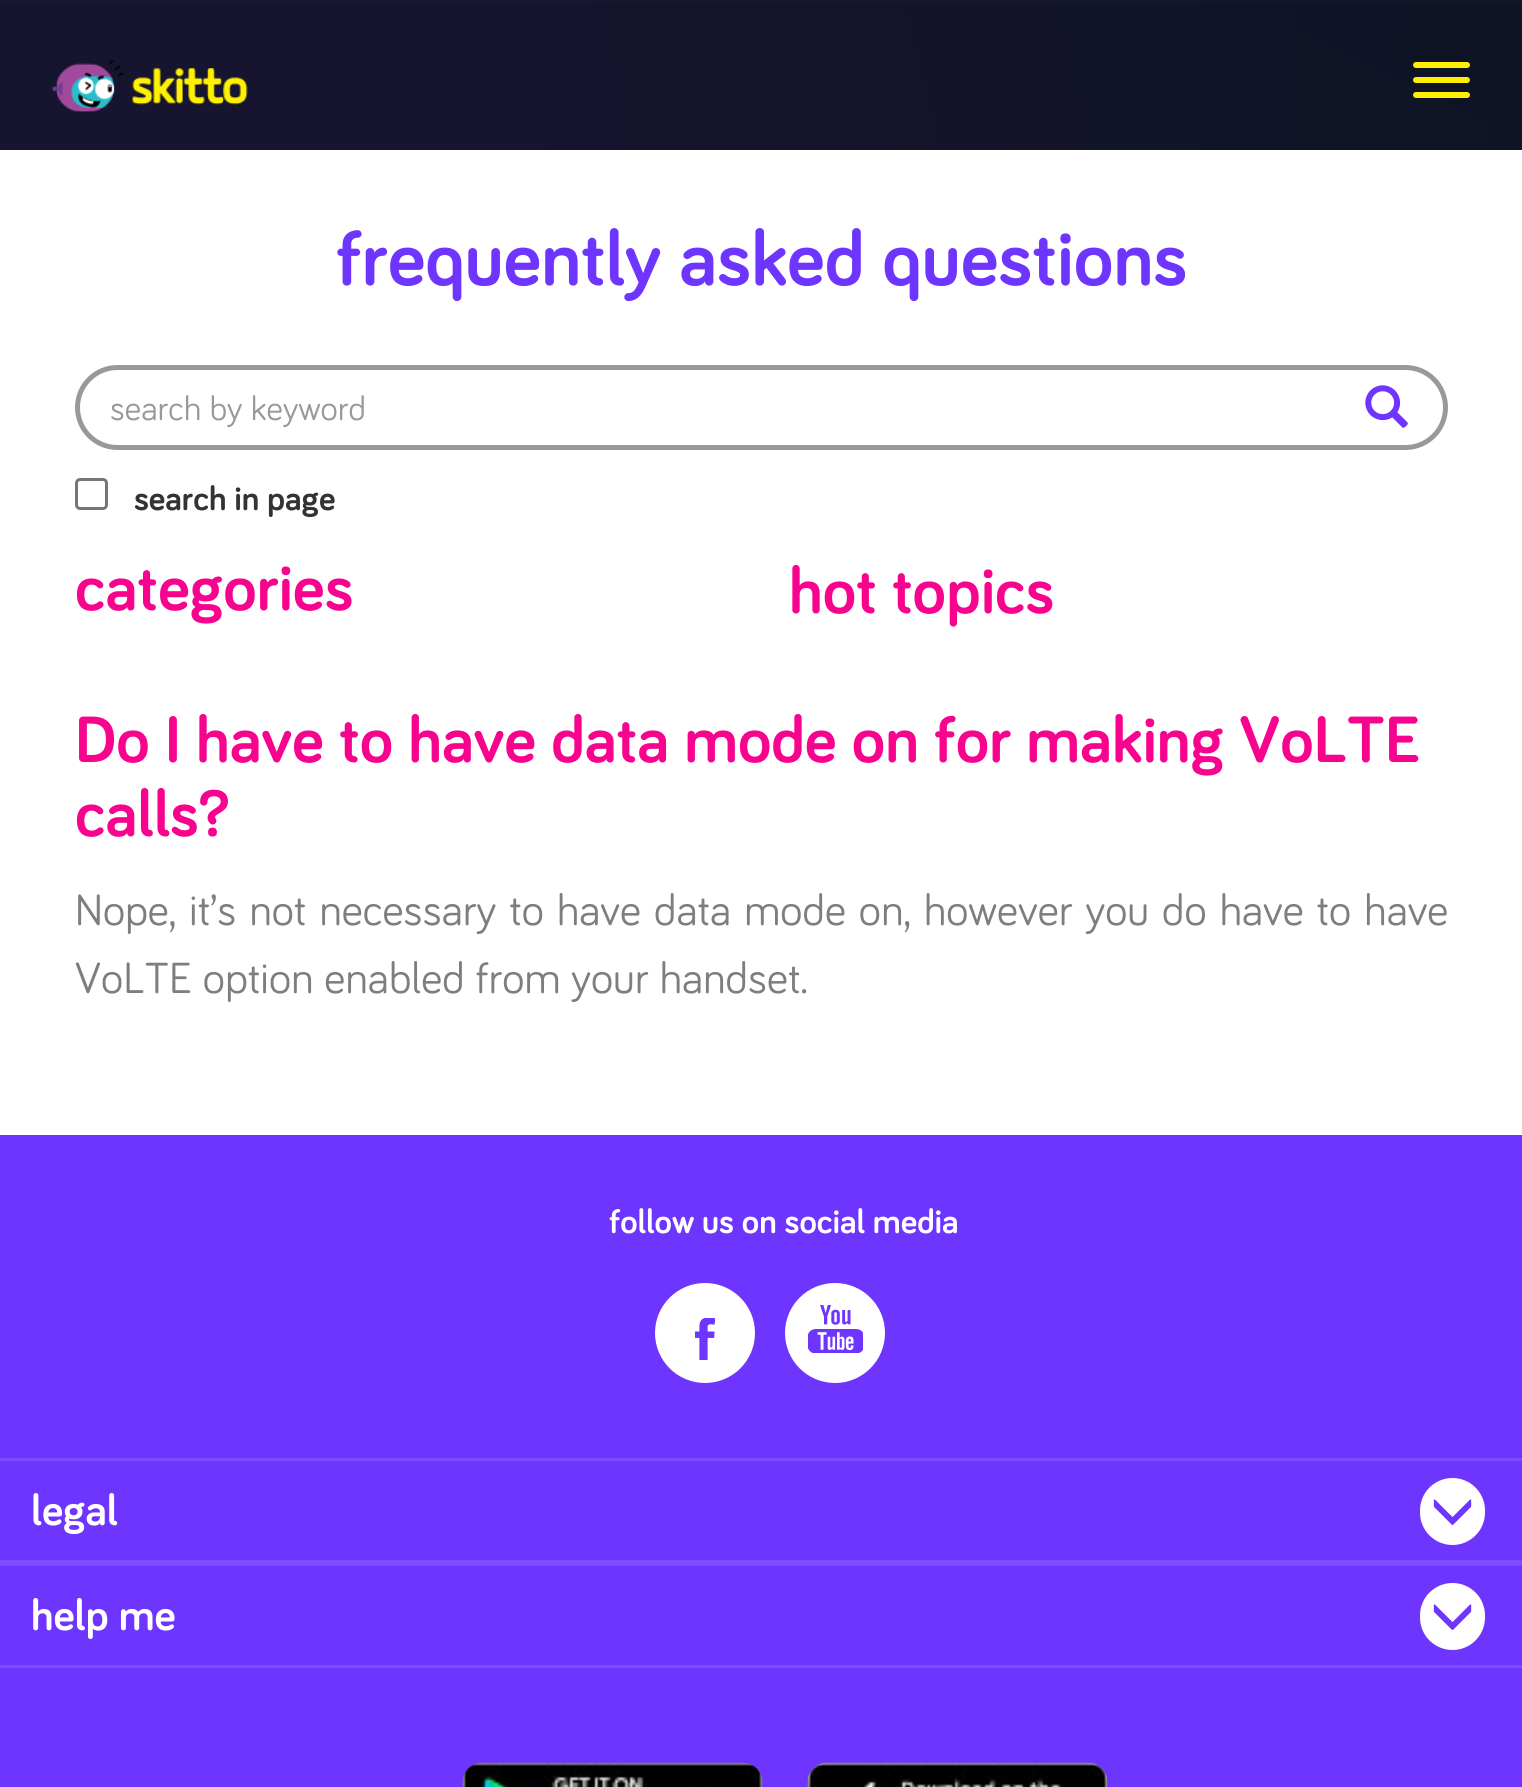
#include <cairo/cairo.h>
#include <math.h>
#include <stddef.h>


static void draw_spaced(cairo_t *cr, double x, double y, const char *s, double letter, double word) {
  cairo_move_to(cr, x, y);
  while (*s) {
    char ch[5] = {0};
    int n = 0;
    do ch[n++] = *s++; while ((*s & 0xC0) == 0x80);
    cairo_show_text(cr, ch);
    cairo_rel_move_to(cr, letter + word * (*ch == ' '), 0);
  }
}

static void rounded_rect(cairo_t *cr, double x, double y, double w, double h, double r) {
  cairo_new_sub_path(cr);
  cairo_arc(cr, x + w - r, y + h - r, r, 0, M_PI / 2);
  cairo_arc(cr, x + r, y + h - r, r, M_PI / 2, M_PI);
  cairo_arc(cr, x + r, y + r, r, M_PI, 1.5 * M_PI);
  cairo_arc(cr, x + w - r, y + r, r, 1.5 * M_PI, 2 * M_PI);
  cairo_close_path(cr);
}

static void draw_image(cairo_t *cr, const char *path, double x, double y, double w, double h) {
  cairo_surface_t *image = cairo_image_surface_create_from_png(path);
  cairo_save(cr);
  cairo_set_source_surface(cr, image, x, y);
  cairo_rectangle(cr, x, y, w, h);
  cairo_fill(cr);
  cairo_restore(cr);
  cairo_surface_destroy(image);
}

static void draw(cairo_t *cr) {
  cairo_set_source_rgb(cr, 1, 1, 1);
  cairo_paint(cr);
  draw_image(cr, "images/1.png", 0, 0, 1522, 150);
  draw_image(cr, "images/2.png", 52, 60, 196, 52);
  cairo_set_source_rgb(cr, 1, 240 / 255.0, 0);
  rounded_rect(cr, 1413, 62, 57, 6, 3);
  cairo_fill(cr);
  rounded_rect(cr, 1413, 77, 57, 6, 3);
  cairo_fill(cr);
  rounded_rect(cr, 1413, 92, 57, 6, 3);
  cairo_fill(cr);
  rounded_rect(cr, 77.5, 367.5, 1368, 80, 40);
  cairo_set_source_rgb(cr, 153 / 255.0, 153 / 255.0, 153 / 255.0);
  cairo_set_line_width(cr, 5);
  cairo_stroke(cr);
  draw_image(cr, "images/3.png", 1365, 385, 43, 43);
  rounded_rect(cr, 76.5, 479.5, 30, 29, 3.5);
  cairo_set_source_rgb(cr, 118 / 255.0, 118 / 255.0, 118 / 255.0);
  cairo_set_line_width(cr, 3);
  cairo_stroke(cr);
  cairo_set_source_rgb(cr, 110 / 255.0, 53 / 255.0, 1);
  cairo_rectangle(cr, 0, 1135, 1522, 652);
  cairo_fill(cr);
  cairo_set_source_rgb(cr, 1, 1, 1);
  cairo_arc(cr, 705, 1333, 50, 0, 2 * M_PI);
  cairo_fill(cr);
  draw_image(cr, "images/4.png", 695, 1318, 20, 42);
  cairo_arc(cr, 835, 1333, 50, 0, 2 * M_PI);
  cairo_fill(cr);
  draw_image(cr, "images/5.png", 808, 1305, 55, 48);
  cairo_set_source_rgb(cr, 126 / 255.0, 77 / 255.0, 1);
  cairo_rectangle(cr, 0, 1458, 1522, 3);
  cairo_fill(cr);
  cairo_rectangle(cr, 0, 1560, 1522, 6);
  cairo_fill(cr);
  cairo_set_source_rgb(cr, 1, 1, 1);
  rounded_rect(cr, 1420, 1478, 65, 67, 32.5);
  cairo_fill(cr);
  draw_image(cr, "images/6.png", 1433, 1499, 39, 26);
  cairo_set_source_rgb(cr, 126 / 255.0, 77 / 255.0, 1);
  cairo_rectangle(cr, 0, 1665, 1522, 3);
  cairo_fill(cr);
  cairo_set_source_rgb(cr, 1, 1, 1);
  rounded_rect(cr, 1420, 1583, 65, 67, 32.5);
  cairo_fill(cr);
  draw_image(cr, "images/6.png", 1433, 1604, 39, 26);
  draw_image(cr, "images/7.png", 462, 1762, 301, 25);
  draw_image(cr, "images/8.png", 807, 1762, 301, 25);
  cairo_select_font_face(cr, "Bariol", CAIRO_FONT_SLANT_NORMAL, CAIRO_FONT_WEIGHT_BOLD);
  cairo_set_font_size(cr, 80);
  cairo_set_source_rgb(cr, 110 / 255.0, 53 / 255.0, 1);
  cairo_move_to(cr, 336, 285);
  cairo_show_text(cr, "frequently asked questions");
  cairo_select_font_face(cr, "Bariol", CAIRO_FONT_SLANT_NORMAL, CAIRO_FONT_WEIGHT_NORMAL);
  cairo_set_font_size(cr, 35);
  cairo_set_source_rgb(cr, 153 / 255.0, 153 / 255.0, 153 / 255.0);
  cairo_move_to(cr, 110, 420);
  cairo_show_text(cr, "search by keyword");
  cairo_select_font_face(cr, "Bariol", CAIRO_FONT_SLANT_NORMAL, CAIRO_FONT_WEIGHT_BOLD);
  cairo_set_source_rgb(cr, 51 / 255.0, 51 / 255.0, 51 / 255.0);
  cairo_move_to(cr, 134, 510);
  cairo_show_text(cr, "search in page");
  cairo_set_font_size(cr, 67.5);
  cairo_set_source_rgb(cr, 247 / 255.0, 3 / 255.0, 142 / 255.0);
  cairo_move_to(cr, 75, 610);
  cairo_show_text(cr, "categories");
  cairo_move_to(cr, 789, 613);
  cairo_show_text(cr, "hot topics");
  cairo_move_to(cr, 75, 762);
  cairo_show_text(cr, "Do I have to have data mode on for making VoLTE");
  cairo_move_to(cr, 75, 836);
  cairo_show_text(cr, "calls?");
  cairo_select_font_face(cr, "Bariol", CAIRO_FONT_SLANT_NORMAL, CAIRO_FONT_WEIGHT_NORMAL);
  cairo_set_font_size(cr, 45);
  cairo_set_source_rgb(cr, 126 / 255.0, 126 / 255.0, 126 / 255.0);
  draw_spaced(cr, 75, 925, "Nope, it’s not necessary to have data mode on, however you do have to have", 0, 2.25);
  cairo_move_to(cr, 75, 993);
  cairo_show_text(cr, "VoLTE option enabled from your handset.");
  cairo_select_font_face(cr, "Bariol", CAIRO_FONT_SLANT_NORMAL, CAIRO_FONT_WEIGHT_BOLD);
  cairo_set_font_size(cr, 35);
  cairo_set_source_rgb(cr, 1, 1, 1);
  cairo_move_to(cr, 609, 1233);
  cairo_show_text(cr, "follow us on social media");
  cairo_set_font_size(cr, 45);
  cairo_move_to(cr, 31, 1525);
  cairo_show_text(cr, "legal");
  cairo_move_to(cr, 31, 1630);
  cairo_show_text(cr, "help me");
}

int main(void) {
  cairo_surface_t *surface = cairo_image_surface_create(CAIRO_FORMAT_RGB24, 1522, 1787);
  cairo_t *cr = cairo_create(surface);
  cairo_font_options_t *options = cairo_font_options_create();
  cairo_font_options_set_hint_metrics(options, CAIRO_HINT_METRICS_OFF);
  cairo_font_options_set_hint_style(options, CAIRO_HINT_STYLE_NONE);
  cairo_set_font_options(cr, options);
  cairo_set_miter_limit(cr, 4);
  draw(cr);
  cairo_surface_write_to_png(surface, "out.png");
  cairo_font_options_destroy(options);
  cairo_destroy(cr);
  cairo_surface_destroy(surface);
  return 0;
}
